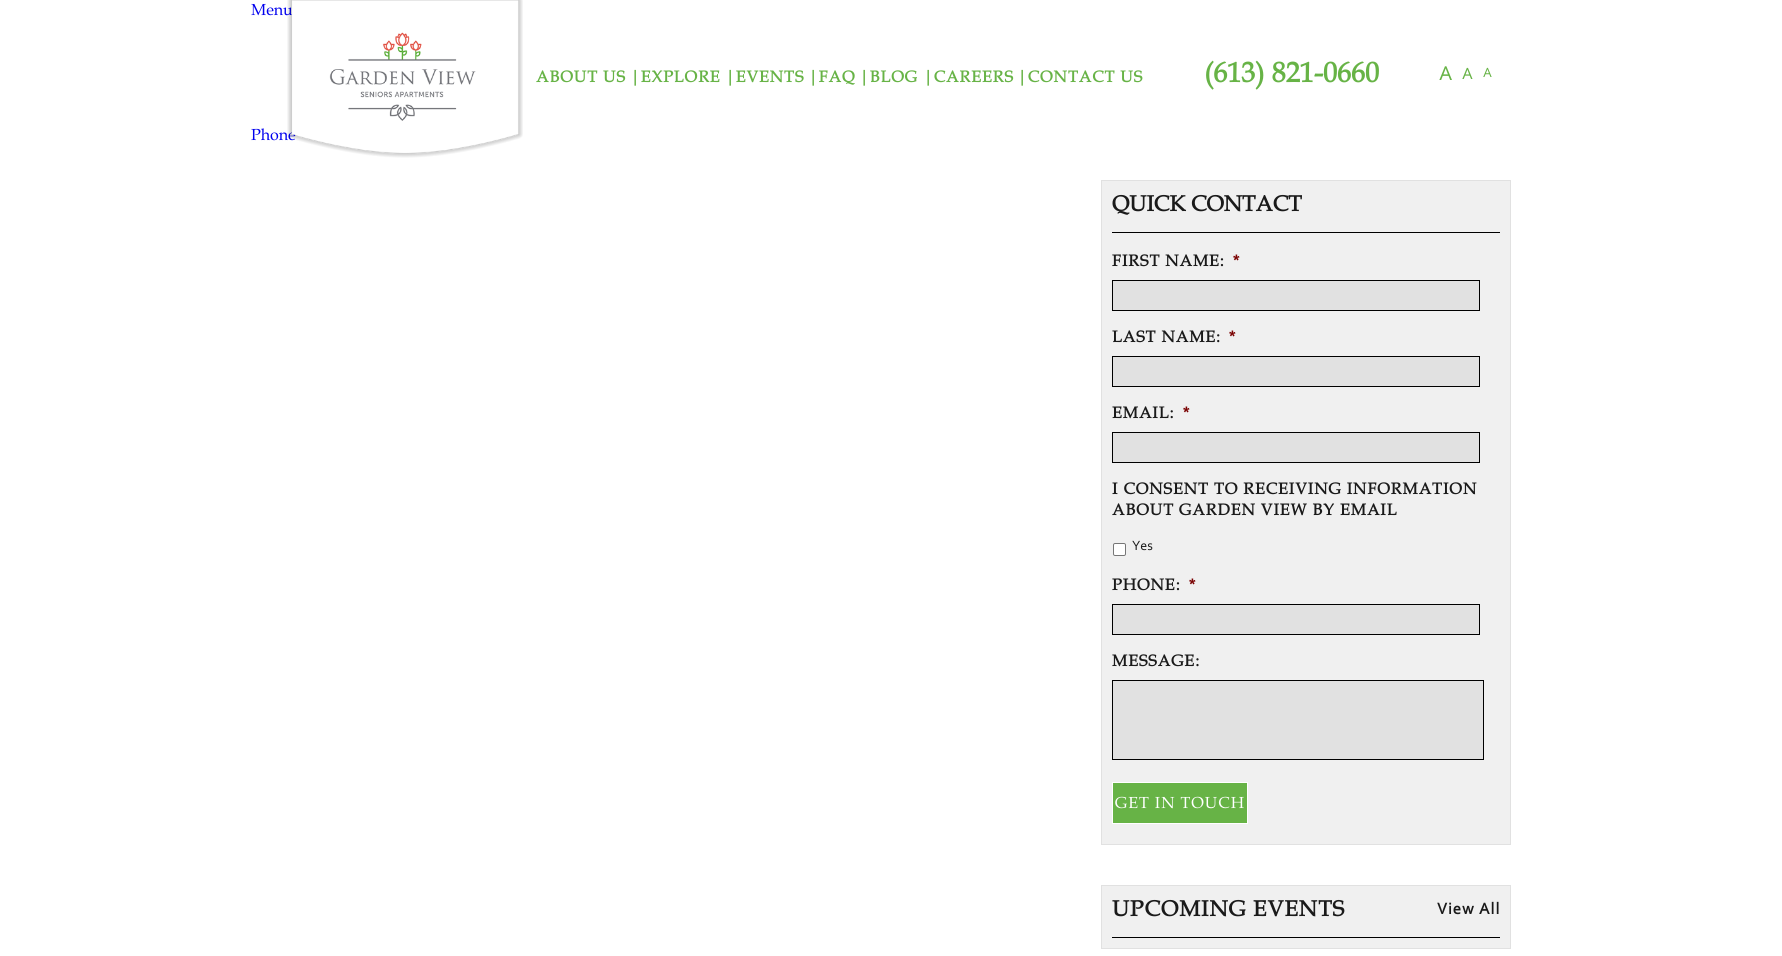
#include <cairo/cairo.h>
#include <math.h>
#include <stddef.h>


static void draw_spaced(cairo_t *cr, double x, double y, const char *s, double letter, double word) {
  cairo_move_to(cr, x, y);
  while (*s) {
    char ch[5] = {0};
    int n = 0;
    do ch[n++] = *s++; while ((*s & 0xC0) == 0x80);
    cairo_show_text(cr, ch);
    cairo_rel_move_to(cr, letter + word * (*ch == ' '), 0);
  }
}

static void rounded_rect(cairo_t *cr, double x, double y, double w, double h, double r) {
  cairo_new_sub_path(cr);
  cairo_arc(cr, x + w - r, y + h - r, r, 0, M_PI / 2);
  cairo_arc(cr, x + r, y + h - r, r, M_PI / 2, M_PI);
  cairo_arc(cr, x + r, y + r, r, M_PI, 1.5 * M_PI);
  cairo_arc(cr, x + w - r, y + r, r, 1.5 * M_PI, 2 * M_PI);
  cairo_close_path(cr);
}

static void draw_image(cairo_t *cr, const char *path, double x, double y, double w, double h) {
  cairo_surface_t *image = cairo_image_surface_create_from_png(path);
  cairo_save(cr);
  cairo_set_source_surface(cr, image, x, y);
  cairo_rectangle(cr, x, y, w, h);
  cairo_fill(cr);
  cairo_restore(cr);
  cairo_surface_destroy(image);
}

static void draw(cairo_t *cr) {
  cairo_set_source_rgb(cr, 1, 1, 1);
  cairo_paint(cr);
  cairo_set_source_rgb(cr, 240 / 255.0, 240 / 255.0, 240 / 255.0);
  cairo_rectangle(cr, 1101.5, 180.5, 409, 664);
  cairo_fill_preserve(cr);
  cairo_set_source_rgb(cr, 225 / 255.0, 225 / 255.0, 225 / 255.0);
  cairo_set_line_width(cr, 1);
  cairo_stroke(cr);
  cairo_set_source_rgb(cr, 0, 0, 0);
  cairo_rectangle(cr, 1112, 232, 388, 1);
  cairo_fill(cr);
  cairo_set_source_rgb(cr, 225 / 255.0, 225 / 255.0, 225 / 255.0);
  cairo_rectangle(cr, 1112.5, 280.5, 367, 30);
  cairo_fill_preserve(cr);
  cairo_set_source_rgb(cr, 0, 0, 0);
  cairo_stroke(cr);
  cairo_set_source_rgb(cr, 225 / 255.0, 225 / 255.0, 225 / 255.0);
  cairo_rectangle(cr, 1112.5, 356.5, 367, 30);
  cairo_fill_preserve(cr);
  cairo_set_source_rgb(cr, 0, 0, 0);
  cairo_stroke(cr);
  cairo_set_source_rgb(cr, 225 / 255.0, 225 / 255.0, 225 / 255.0);
  cairo_rectangle(cr, 1112.5, 432.5, 367, 30);
  cairo_fill_preserve(cr);
  cairo_set_source_rgb(cr, 0, 0, 0);
  cairo_stroke(cr);
  cairo_set_source_rgb(cr, 1, 1, 1);
  rounded_rect(cr, 1113.5, 543.5, 12, 12, 1.5);
  cairo_fill_preserve(cr);
  cairo_set_source_rgb(cr, 118 / 255.0, 118 / 255.0, 118 / 255.0);
  cairo_stroke(cr);
  cairo_set_source_rgb(cr, 225 / 255.0, 225 / 255.0, 225 / 255.0);
  cairo_rectangle(cr, 1112.5, 604.5, 367, 30);
  cairo_fill_preserve(cr);
  cairo_set_source_rgb(cr, 0, 0, 0);
  cairo_stroke(cr);
  cairo_set_source_rgb(cr, 225 / 255.0, 225 / 255.0, 225 / 255.0);
  cairo_rectangle(cr, 1112.5, 680.5, 371, 79);
  cairo_fill_preserve(cr);
  cairo_set_source_rgb(cr, 0, 0, 0);
  cairo_stroke(cr);
  cairo_set_source_rgb(cr, 103 / 255.0, 179 / 255.0, 70 / 255.0);
  cairo_rectangle(cr, 1112.5, 782.5, 135, 41);
  cairo_fill_preserve(cr);
  cairo_set_source_rgb(cr, 1, 1, 1);
  cairo_stroke(cr);
  cairo_set_source_rgb(cr, 240 / 255.0, 240 / 255.0, 240 / 255.0);
  cairo_rectangle(cr, 1101.5, 885.5, 409, 63);
  cairo_fill_preserve(cr);
  cairo_set_source_rgb(cr, 225 / 255.0, 225 / 255.0, 225 / 255.0);
  cairo_stroke(cr);
  cairo_set_source_rgb(cr, 0, 0, 0);
  cairo_rectangle(cr, 1112, 937, 388, 1);
  cairo_fill(cr);
  cairo_select_font_face(cr, "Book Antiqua", CAIRO_FONT_SLANT_NORMAL, CAIRO_FONT_WEIGHT_NORMAL);
  cairo_set_font_size(cr, 16);
  cairo_set_source_rgb(cr, 0, 0, 238 / 255.0);
  cairo_move_to(cr, 251, 15);
  cairo_show_text(cr, "Menu");
  cairo_select_font_face(cr, "Book Antiqua", CAIRO_FONT_SLANT_NORMAL, CAIRO_FONT_WEIGHT_BOLD);
  cairo_set_source_rgb(cr, 103 / 255.0, 179 / 255.0, 70 / 255.0);
  draw_spaced(cr, 536, 82, "ABOUT US", 1, 0);
  draw_spaced(cr, 630, 82, "|EXPLORE", 1, 0);
  draw_spaced(cr, 725, 82, "|EVENTS", 1, 0);
  draw_spaced(cr, 808, 82, "|FAQ", 1, 0);
  draw_spaced(cr, 859, 82, "|BLOG", 1, 0);
  draw_spaced(cr, 923, 82, "|CAREERS", 1, 0);
  draw_spaced(cr, 1017, 82, "|CONTACT US", 1, 0);
  cairo_set_font_size(cr, 28);
  cairo_move_to(cr, 1204, 82);
  cairo_show_text(cr, "(613) 821-0660");
  cairo_select_font_face(cr, "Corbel", CAIRO_FONT_SLANT_NORMAL, CAIRO_FONT_WEIGHT_NORMAL);
  cairo_set_font_size(cr, 21);
  cairo_move_to(cr, 1439, 80);
  cairo_show_text(cr, "A");
  cairo_set_font_size(cr, 17);
  cairo_move_to(cr, 1462, 79);
  cairo_show_text(cr, "A");
  cairo_set_font_size(cr, 14);
  cairo_move_to(cr, 1483, 77);
  cairo_show_text(cr, "A");
  cairo_select_font_face(cr, "Book Antiqua", CAIRO_FONT_SLANT_NORMAL, CAIRO_FONT_WEIGHT_NORMAL);
  cairo_set_font_size(cr, 16);
  cairo_set_source_rgb(cr, 0, 0, 238 / 255.0);
  cairo_move_to(cr, 251, 140);
  cairo_show_text(cr, "Phone");
  draw_image(cr, "images/1.png", 287, 0, 236, 158);
  cairo_select_font_face(cr, "Book Antiqua", CAIRO_FONT_SLANT_NORMAL, CAIRO_FONT_WEIGHT_BOLD);
  cairo_set_font_size(cr, 22);
  cairo_set_source_rgb(cr, 26 / 255.0, 26 / 255.0, 26 / 255.0);
  cairo_move_to(cr, 1112, 211);
  cairo_show_text(cr, "QUICK CONTACT");
  cairo_set_font_size(cr, 16);
  draw_spaced(cr, 1112, 266, "FIRST NAME:", 1, 0);
  cairo_set_source_rgb(cr, 121 / 255.0, 0, 0);
  draw_spaced(cr, 1233, 266, "*", 1, 0);
  cairo_set_source_rgb(cr, 26 / 255.0, 26 / 255.0, 26 / 255.0);
  draw_spaced(cr, 1112, 342, "LAST NAME:", 1, 0);
  cairo_set_source_rgb(cr, 121 / 255.0, 0, 0);
  draw_spaced(cr, 1229, 342, "*", 1, 0);
  cairo_set_source_rgb(cr, 26 / 255.0, 26 / 255.0, 26 / 255.0);
  draw_spaced(cr, 1112, 418, "EMAIL:", 1, 0);
  cairo_set_source_rgb(cr, 121 / 255.0, 0, 0);
  draw_spaced(cr, 1183, 418, "*", 1, 0);
  cairo_set_source_rgb(cr, 26 / 255.0, 26 / 255.0, 26 / 255.0);
  draw_spaced(cr, 1112, 494, "I CONSENT TO RECEIVING INFORMATION", 1, 0);
  draw_spaced(cr, 1112, 515, "ABOUT GARDEN VIEW BY EMAIL", 1, 0);
  cairo_select_font_face(cr, "Corbel", CAIRO_FONT_SLANT_NORMAL, CAIRO_FONT_WEIGHT_NORMAL);
  cairo_set_font_size(cr, 14);
  cairo_move_to(cr, 1132, 550);
  cairo_show_text(cr, "Yes");
  cairo_select_font_face(cr, "Book Antiqua", CAIRO_FONT_SLANT_NORMAL, CAIRO_FONT_WEIGHT_BOLD);
  cairo_set_font_size(cr, 16);
  draw_spaced(cr, 1112, 590, "PHONE:", 1, 0);
  cairo_set_source_rgb(cr, 121 / 255.0, 0, 0);
  draw_spaced(cr, 1189, 590, "*", 1, 0);
  cairo_set_source_rgb(cr, 26 / 255.0, 26 / 255.0, 26 / 255.0);
  draw_spaced(cr, 1112, 666, "MESSAGE:", 1, 0);
  cairo_select_font_face(cr, "Book Antiqua", CAIRO_FONT_SLANT_NORMAL, CAIRO_FONT_WEIGHT_NORMAL);
  cairo_set_source_rgb(cr, 1, 1, 1);
  draw_spaced(cr, 1115, 808, "GET IN TOUCH", 1, 0);
  cairo_select_font_face(cr, "Book Antiqua", CAIRO_FONT_SLANT_NORMAL, CAIRO_FONT_WEIGHT_BOLD);
  cairo_set_font_size(cr, 22);
  cairo_set_source_rgb(cr, 26 / 255.0, 26 / 255.0, 26 / 255.0);
  draw_spaced(cr, 1112, 916, "UPCOMING EVENTS", 1, 0);
  cairo_select_font_face(cr, "Corbel", CAIRO_FONT_SLANT_NORMAL, CAIRO_FONT_WEIGHT_BOLD);
  cairo_set_font_size(cr, 16.5);
  draw_spaced(cr, 1437, 914, "View All", 1, 0);
}

int main(void) {
  cairo_surface_t *surface = cairo_image_surface_create(CAIRO_FORMAT_RGB24, 1782, 956);
  cairo_t *cr = cairo_create(surface);
  cairo_font_options_t *options = cairo_font_options_create();
  cairo_font_options_set_hint_metrics(options, CAIRO_HINT_METRICS_OFF);
  cairo_font_options_set_hint_style(options, CAIRO_HINT_STYLE_NONE);
  cairo_set_font_options(cr, options);
  cairo_set_miter_limit(cr, 4);
  draw(cr);
  cairo_surface_write_to_png(surface, "out.png");
  cairo_font_options_destroy(options);
  cairo_destroy(cr);
  cairo_surface_destroy(surface);
  return 0;
}
